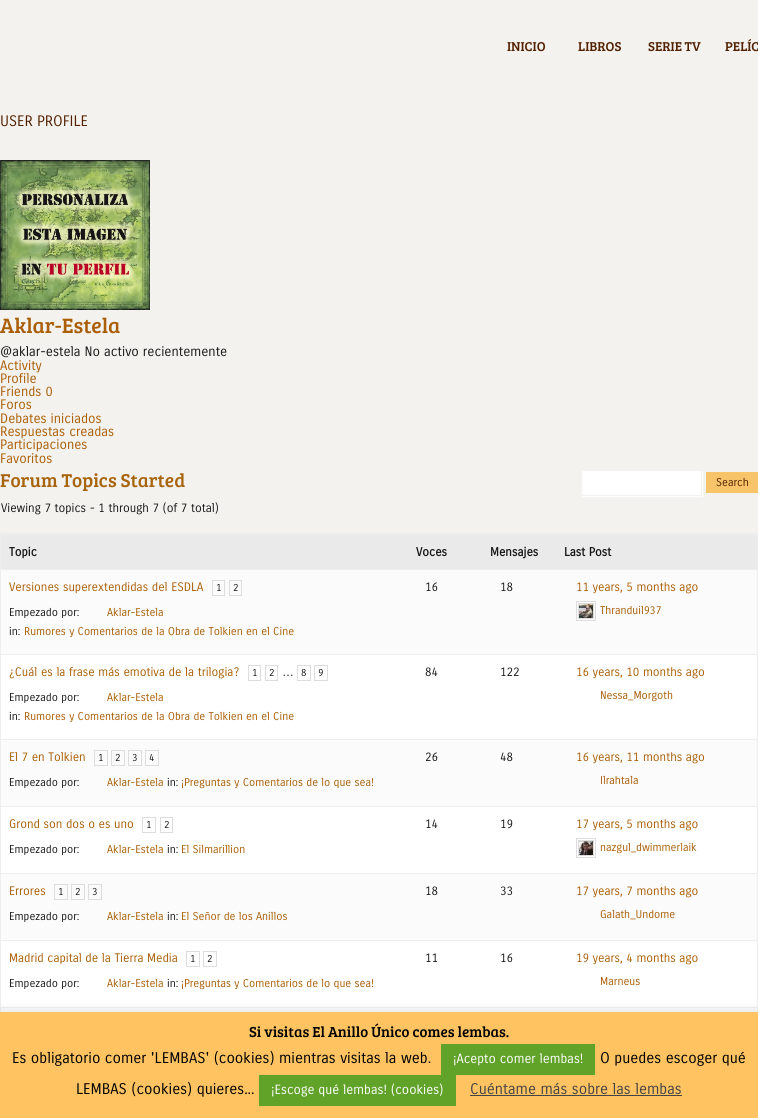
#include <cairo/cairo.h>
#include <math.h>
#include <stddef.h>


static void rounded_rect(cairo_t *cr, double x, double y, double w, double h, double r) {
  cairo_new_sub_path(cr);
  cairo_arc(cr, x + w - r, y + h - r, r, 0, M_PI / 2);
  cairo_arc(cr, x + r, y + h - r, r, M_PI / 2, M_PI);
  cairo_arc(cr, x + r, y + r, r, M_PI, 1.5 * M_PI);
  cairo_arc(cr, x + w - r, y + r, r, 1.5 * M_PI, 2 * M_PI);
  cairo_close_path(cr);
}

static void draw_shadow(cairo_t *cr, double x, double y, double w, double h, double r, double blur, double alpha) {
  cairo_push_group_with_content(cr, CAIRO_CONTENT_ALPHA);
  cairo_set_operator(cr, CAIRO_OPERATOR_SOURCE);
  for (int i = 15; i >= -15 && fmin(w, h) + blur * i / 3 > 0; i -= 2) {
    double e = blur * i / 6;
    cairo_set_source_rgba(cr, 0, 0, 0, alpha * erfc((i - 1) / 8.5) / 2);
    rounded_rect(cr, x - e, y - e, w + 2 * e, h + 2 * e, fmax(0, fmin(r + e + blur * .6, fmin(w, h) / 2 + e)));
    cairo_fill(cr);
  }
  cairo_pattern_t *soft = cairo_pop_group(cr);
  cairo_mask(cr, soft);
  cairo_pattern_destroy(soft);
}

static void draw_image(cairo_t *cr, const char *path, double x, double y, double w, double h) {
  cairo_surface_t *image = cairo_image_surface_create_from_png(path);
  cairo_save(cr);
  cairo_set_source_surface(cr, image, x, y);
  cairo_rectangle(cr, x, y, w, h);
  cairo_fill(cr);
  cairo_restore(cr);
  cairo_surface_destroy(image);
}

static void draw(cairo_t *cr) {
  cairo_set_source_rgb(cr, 244 / 255.0, 242 / 255.0, 238 / 255.0);
  cairo_paint(cr);
  draw_image(cr, "images/1.png", 0, 160, 150, 150);
  cairo_set_source_rgb(cr, 1, 1, 1);
  draw_shadow(cr, 582, 471, 121, 26, 0, 0.5, 1);
  cairo_set_source_rgb(cr, 1, 1, 1);
  cairo_rectangle(cr, 582, 471, 1, 1);
  cairo_fill(cr);
  cairo_rectangle(cr, 581.5, 470.5, 120, 25);
  cairo_set_source_rgb(cr, 244 / 255.0, 243 / 255.0, 242 / 255.0);
  cairo_set_line_width(cr, 1);
  cairo_stroke(cr);
  cairo_set_source_rgb(cr, 247 / 255.0, 196 / 255.0, 105 / 255.0);
  cairo_rectangle(cr, 706, 472, 52, 21);
  cairo_fill(cr);
  cairo_rectangle(cr, 0.5, 533.5, 757, 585);
  cairo_set_source_rgb(cr, 238 / 255.0, 238 / 255.0, 238 / 255.0);
  cairo_stroke(cr);
  cairo_set_source_rgb(cr, 234 / 255.0, 234 / 255.0, 234 / 255.0);
  cairo_rectangle(cr, 1, 535, 756, 34);
  cairo_fill(cr);
  cairo_set_source_rgb(cr, 238 / 255.0, 238 / 255.0, 238 / 255.0);
  cairo_rectangle(cr, 1, 534, 756, 1);
  cairo_fill(cr);
  cairo_set_source_rgb(cr, 251 / 255.0, 251 / 255.0, 251 / 255.0);
  cairo_rectangle(cr, 1, 570, 756, 84);
  cairo_fill(cr);
  cairo_set_source_rgb(cr, 238 / 255.0, 238 / 255.0, 238 / 255.0);
  cairo_rectangle(cr, 1, 569, 756, 1);
  cairo_fill(cr);
  cairo_rectangle(cr, 212.5, 580.5, 12, 15);
  cairo_set_source_rgb(cr, 221 / 255.0, 221 / 255.0, 221 / 255.0);
  cairo_stroke(cr);
  cairo_rectangle(cr, 229.5, 580.5, 12, 15);
  cairo_stroke(cr);
  cairo_rectangle(cr, 576.5, 601.5, 19, 19);
  cairo_stroke(cr);
  cairo_rectangle(cr, 578.5, 603.5, 15, 15);
  cairo_stroke(cr);
  draw_image(cr, "images/2.png", 579, 604, 14, 14);
  cairo_set_source_rgb(cr, 1, 1, 1);
  cairo_rectangle(cr, 1, 655, 756, 84);
  cairo_fill(cr);
  cairo_set_source_rgb(cr, 238 / 255.0, 238 / 255.0, 238 / 255.0);
  cairo_rectangle(cr, 1, 654, 756, 1);
  cairo_fill(cr);
  cairo_rectangle(cr, 248.5, 665.5, 12, 15);
  cairo_set_source_rgb(cr, 221 / 255.0, 221 / 255.0, 221 / 255.0);
  cairo_stroke(cr);
  cairo_rectangle(cr, 265.5, 665.5, 12, 15);
  cairo_stroke(cr);
  cairo_rectangle(cr, 297.5, 665.5, 13, 15);
  cairo_stroke(cr);
  cairo_rectangle(cr, 314.5, 665.5, 13, 15);
  cairo_stroke(cr);
  cairo_set_source_rgb(cr, 251 / 255.0, 251 / 255.0, 251 / 255.0);
  cairo_rectangle(cr, 1, 740, 756, 66);
  cairo_fill(cr);
  cairo_set_source_rgb(cr, 238 / 255.0, 238 / 255.0, 238 / 255.0);
  cairo_rectangle(cr, 1, 739, 756, 1);
  cairo_fill(cr);
  cairo_rectangle(cr, 94.5, 750.5, 13, 15);
  cairo_set_source_rgb(cr, 221 / 255.0, 221 / 255.0, 221 / 255.0);
  cairo_stroke(cr);
  cairo_rectangle(cr, 111.5, 750.5, 13, 15);
  cairo_stroke(cr);
  cairo_rectangle(cr, 128.5, 750.5, 13, 15);
  cairo_stroke(cr);
  cairo_rectangle(cr, 145.5, 750.5, 13, 15);
  cairo_stroke(cr);
  cairo_set_source_rgb(cr, 1, 1, 1);
  cairo_rectangle(cr, 1, 807, 756, 66);
  cairo_fill(cr);
  cairo_set_source_rgb(cr, 238 / 255.0, 238 / 255.0, 238 / 255.0);
  cairo_rectangle(cr, 1, 806, 756, 1);
  cairo_fill(cr);
  cairo_rectangle(cr, 142.5, 817.5, 13, 15);
  cairo_set_source_rgb(cr, 221 / 255.0, 221 / 255.0, 221 / 255.0);
  cairo_stroke(cr);
  cairo_rectangle(cr, 160.5, 817.5, 12, 15);
  cairo_stroke(cr);
  cairo_rectangle(cr, 576.5, 838.5, 19, 19);
  cairo_stroke(cr);
  cairo_rectangle(cr, 578.5, 840.5, 15, 15);
  cairo_stroke(cr);
  draw_image(cr, "images/3.png", 579, 841, 14, 14);
  cairo_set_source_rgb(cr, 251 / 255.0, 251 / 255.0, 251 / 255.0);
  cairo_rectangle(cr, 1, 874, 756, 66);
  cairo_fill(cr);
  cairo_set_source_rgb(cr, 238 / 255.0, 238 / 255.0, 238 / 255.0);
  cairo_rectangle(cr, 1, 873, 756, 1);
  cairo_fill(cr);
  cairo_rectangle(cr, 54.5, 884.5, 13, 15);
  cairo_set_source_rgb(cr, 221 / 255.0, 221 / 255.0, 221 / 255.0);
  cairo_stroke(cr);
  cairo_rectangle(cr, 71.5, 884.5, 13, 15);
  cairo_stroke(cr);
  cairo_rectangle(cr, 88.5, 884.5, 13, 15);
  cairo_stroke(cr);
  cairo_set_source_rgb(cr, 1, 1, 1);
  cairo_rectangle(cr, 1, 941, 756, 66);
  cairo_fill(cr);
  cairo_set_source_rgb(cr, 238 / 255.0, 238 / 255.0, 238 / 255.0);
  cairo_rectangle(cr, 1, 940, 756, 1);
  cairo_fill(cr);
  cairo_rectangle(cr, 186.5, 951.5, 13, 15);
  cairo_set_source_rgb(cr, 221 / 255.0, 221 / 255.0, 221 / 255.0);
  cairo_stroke(cr);
  cairo_rectangle(cr, 203.5, 951.5, 13, 15);
  cairo_stroke(cr);
  cairo_set_source_rgb(cr, 251 / 255.0, 251 / 255.0, 251 / 255.0);
  cairo_rectangle(cr, 1, 1008, 756, 4);
  cairo_fill(cr);
  cairo_set_source_rgb(cr, 238 / 255.0, 238 / 255.0, 238 / 255.0);
  cairo_rectangle(cr, 1, 1007, 756, 1);
  cairo_fill(cr);
  cairo_set_source_rgb(cr, 172 / 255.0, 171 / 255.0, 171 / 255.0);
  draw_shadow(cr, 0, 1011, 758, 106, 0, 5, 0.3);
  cairo_set_source_rgb(cr, 1, 195 / 255.0, 98 / 255.0);
  cairo_rectangle(cr, 0, 1012, 758, 106);
  cairo_fill(cr);
  cairo_set_source_rgb(cr, 97 / 255.0, 162 / 255.0, 41 / 255.0);
  cairo_rectangle(cr, 441, 1044, 154, 31);
  cairo_fill(cr);
  cairo_rectangle(cr, 259, 1075, 197, 31);
  cairo_fill(cr);
  cairo_set_source_rgb(cr, 68 / 255.0, 68 / 255.0, 68 / 255.0);
  cairo_rectangle(cr, 470, 1095, 212, 1);
  cairo_fill(cr);
  cairo_select_font_face(cr, "Bree Serif", CAIRO_FONT_SLANT_NORMAL, CAIRO_FONT_WEIGHT_NORMAL);
  cairo_set_font_size(cr, 13.3);
  cairo_set_source_rgb(cr, 82 / 255.0, 33 / 255.0, 1 / 255.0);
  cairo_move_to(cr, 507, 51);
  cairo_show_text(cr, "INICIO");
  cairo_move_to(cr, 578, 51);
  cairo_show_text(cr, "LIBROS");
  cairo_move_to(cr, 648, 51);
  cairo_show_text(cr, "SERIE TV");
  cairo_move_to(cr, 725, 51);
  cairo_show_text(cr, "PELÍC");
  cairo_select_font_face(cr, "Carrois Gothic", CAIRO_FONT_SLANT_NORMAL, CAIRO_FONT_WEIGHT_NORMAL);
  cairo_set_font_size(cr, 14.75);
  cairo_move_to(cr, 0, 126);
  cairo_show_text(cr, "USER PROFILE");
  cairo_select_font_face(cr, "Bree Serif", CAIRO_FONT_SLANT_NORMAL, CAIRO_FONT_WEIGHT_NORMAL);
  cairo_set_font_size(cr, 21.5);
  cairo_set_source_rgb(cr, 170 / 255.0, 94 / 255.0, 6 / 255.0);
  cairo_move_to(cr, 0, 333);
  cairo_show_text(cr, "Aklar-Estela");
  cairo_select_font_face(cr, "Carrois Gothic", CAIRO_FONT_SLANT_NORMAL, CAIRO_FONT_WEIGHT_NORMAL);
  cairo_set_font_size(cr, 13.3);
  cairo_set_source_rgb(cr, 23 / 255.0, 23 / 255.0, 23 / 255.0);
  cairo_move_to(cr, 0, 356);
  cairo_show_text(cr, "@aklar-estela No activo recientemente");
  cairo_set_source_rgb(cr, 170 / 255.0, 94 / 255.0, 6 / 255.0);
  cairo_move_to(cr, 0, 370);
  cairo_show_text(cr, "Activity");
  cairo_move_to(cr, 0, 383);
  cairo_show_text(cr, "Profile");
  cairo_move_to(cr, 0, 396);
  cairo_show_text(cr, "Friends 0");
  cairo_move_to(cr, 0, 409);
  cairo_show_text(cr, "Foros");
  cairo_move_to(cr, 0, 423);
  cairo_show_text(cr, "Debates iniciados");
  cairo_move_to(cr, 0, 436);
  cairo_show_text(cr, "Respuestas creadas");
  cairo_move_to(cr, 0, 449);
  cairo_show_text(cr, "Participaciones");
  cairo_move_to(cr, 0, 463);
  cairo_show_text(cr, "Favoritos");
  cairo_select_font_face(cr, "Bree Serif", CAIRO_FONT_SLANT_NORMAL, CAIRO_FONT_WEIGHT_NORMAL);
  cairo_set_font_size(cr, 19.25);
  cairo_set_source_rgb(cr, 168 / 255.0, 100 / 255.0, 12 / 255.0);
  cairo_move_to(cr, 0, 487);
  cairo_show_text(cr, "Forum Topics Started");
  cairo_select_font_face(cr, "Carrois Gothic", CAIRO_FONT_SLANT_NORMAL, CAIRO_FONT_WEIGHT_NORMAL);
  cairo_set_font_size(cr, 11);
  cairo_set_source_rgb(cr, 82 / 255.0, 33 / 255.0, 1 / 255.0);
  cairo_move_to(cr, 716, 486);
  cairo_show_text(cr, "Search");
  cairo_set_font_size(cr, 12);
  cairo_set_source_rgb(cr, 23 / 255.0, 23 / 255.0, 23 / 255.0);
  cairo_move_to(cr, 1, 512);
  cairo_show_text(cr, "Viewing 7 topics - 1 through 7 (of 7 total)");
  cairo_select_font_face(cr, "Carrois Gothic", CAIRO_FONT_SLANT_NORMAL, CAIRO_FONT_WEIGHT_BOLD);
  cairo_move_to(cr, 9, 556);
  cairo_show_text(cr, "Topic");
  cairo_move_to(cr, 416, 556);
  cairo_show_text(cr, "Voces");
  cairo_move_to(cr, 490, 556);
  cairo_show_text(cr, "Mensajes");
  cairo_move_to(cr, 564, 556);
  cairo_show_text(cr, "Last Post");
  cairo_select_font_face(cr, "Carrois Gothic", CAIRO_FONT_SLANT_NORMAL, CAIRO_FONT_WEIGHT_NORMAL);
  cairo_set_source_rgb(cr, 170 / 255.0, 94 / 255.0, 6 / 255.0);
  cairo_move_to(cr, 9, 591);
  cairo_show_text(cr, "Versiones superextendidas del ESDLA");
  cairo_set_font_size(cr, 10);
  cairo_set_source_rgb(cr, 23 / 255.0, 23 / 255.0, 23 / 255.0);
  cairo_move_to(cr, 216, 591);
  cairo_show_text(cr, "1");
  cairo_move_to(cr, 233, 591);
  cairo_show_text(cr, "2");
  cairo_set_font_size(cr, 11);
  cairo_move_to(cr, 9, 616);
  cairo_show_text(cr, "Empezado por:");
  cairo_set_source_rgb(cr, 170 / 255.0, 94 / 255.0, 6 / 255.0);
  cairo_move_to(cr, 107, 616);
  cairo_show_text(cr, "Aklar-Estela");
  cairo_set_source_rgb(cr, 23 / 255.0, 23 / 255.0, 23 / 255.0);
  cairo_move_to(cr, 9, 635);
  cairo_show_text(cr, "in:");
  cairo_set_source_rgb(cr, 170 / 255.0, 94 / 255.0, 6 / 255.0);
  cairo_move_to(cr, 24, 635);
  cairo_show_text(cr, "Rumores y Comentarios de la Obra de Tolkien en el Cine");
  cairo_set_font_size(cr, 12);
  cairo_set_source_rgb(cr, 23 / 255.0, 23 / 255.0, 23 / 255.0);
  cairo_move_to(cr, 425, 591);
  cairo_show_text(cr, "16");
  cairo_move_to(cr, 500, 591);
  cairo_show_text(cr, "18");
  cairo_set_source_rgb(cr, 170 / 255.0, 94 / 255.0, 6 / 255.0);
  cairo_move_to(cr, 576, 591);
  cairo_show_text(cr, "11 years, 5 months ago");
  cairo_set_font_size(cr, 11);
  cairo_move_to(cr, 600, 614);
  cairo_show_text(cr, "Thranduil937");
  cairo_set_font_size(cr, 12);
  cairo_move_to(cr, 9, 676);
  cairo_show_text(cr, "¿Cuál es la frase más emotiva de la trilogia?");
  cairo_set_font_size(cr, 10);
  cairo_set_source_rgb(cr, 23 / 255.0, 23 / 255.0, 23 / 255.0);
  cairo_move_to(cr, 252, 676);
  cairo_show_text(cr, "1");
  cairo_move_to(cr, 269, 676);
  cairo_show_text(cr, "2");
  cairo_select_font_face(cr, "Liberation Sans", CAIRO_FONT_SLANT_NORMAL, CAIRO_FONT_WEIGHT_NORMAL);
  cairo_set_font_size(cr, 12);
  cairo_move_to(cr, 282, 676);
  cairo_show_text(cr, "…");
  cairo_select_font_face(cr, "Carrois Gothic", CAIRO_FONT_SLANT_NORMAL, CAIRO_FONT_WEIGHT_NORMAL);
  cairo_set_font_size(cr, 10);
  cairo_move_to(cr, 301, 676);
  cairo_show_text(cr, "8");
  cairo_move_to(cr, 318, 676);
  cairo_show_text(cr, "9");
  cairo_set_font_size(cr, 11);
  cairo_move_to(cr, 9, 701);
  cairo_show_text(cr, "Empezado por:");
  cairo_set_source_rgb(cr, 170 / 255.0, 94 / 255.0, 6 / 255.0);
  cairo_move_to(cr, 107, 701);
  cairo_show_text(cr, "Aklar-Estela");
  cairo_set_source_rgb(cr, 23 / 255.0, 23 / 255.0, 23 / 255.0);
  cairo_move_to(cr, 9, 720);
  cairo_show_text(cr, "in:");
  cairo_set_source_rgb(cr, 170 / 255.0, 94 / 255.0, 6 / 255.0);
  cairo_move_to(cr, 24, 720);
  cairo_show_text(cr, "Rumores y Comentarios de la Obra de Tolkien en el Cine");
  cairo_set_font_size(cr, 12);
  cairo_set_source_rgb(cr, 23 / 255.0, 23 / 255.0, 23 / 255.0);
  cairo_move_to(cr, 425, 676);
  cairo_show_text(cr, "84");
  cairo_move_to(cr, 500, 676);
  cairo_show_text(cr, "122");
  cairo_set_source_rgb(cr, 170 / 255.0, 94 / 255.0, 6 / 255.0);
  cairo_move_to(cr, 576, 676);
  cairo_show_text(cr, "16 years, 10 months ago");
  cairo_set_font_size(cr, 11);
  cairo_move_to(cr, 600, 699);
  cairo_show_text(cr, "Nessa_Morgoth");
  cairo_set_font_size(cr, 12);
  cairo_move_to(cr, 9, 761);
  cairo_show_text(cr, "El 7 en Tolkien");
  cairo_set_font_size(cr, 10);
  cairo_set_source_rgb(cr, 23 / 255.0, 23 / 255.0, 23 / 255.0);
  cairo_move_to(cr, 98, 761);
  cairo_show_text(cr, "1");
  cairo_move_to(cr, 115, 761);
  cairo_show_text(cr, "2");
  cairo_move_to(cr, 132, 761);
  cairo_show_text(cr, "3");
  cairo_move_to(cr, 149, 761);
  cairo_show_text(cr, "4");
  cairo_set_font_size(cr, 11);
  cairo_move_to(cr, 9, 786);
  cairo_show_text(cr, "Empezado por:");
  cairo_set_source_rgb(cr, 170 / 255.0, 94 / 255.0, 6 / 255.0);
  cairo_move_to(cr, 107, 786);
  cairo_show_text(cr, "Aklar-Estela");
  cairo_set_source_rgb(cr, 23 / 255.0, 23 / 255.0, 23 / 255.0);
  cairo_move_to(cr, 167, 786);
  cairo_show_text(cr, "in:");
  cairo_set_source_rgb(cr, 170 / 255.0, 94 / 255.0, 6 / 255.0);
  cairo_move_to(cr, 181, 786);
  cairo_show_text(cr, "¡Preguntas y Comentarios de lo que sea!");
  cairo_set_font_size(cr, 12);
  cairo_set_source_rgb(cr, 23 / 255.0, 23 / 255.0, 23 / 255.0);
  cairo_move_to(cr, 425, 761);
  cairo_show_text(cr, "26");
  cairo_move_to(cr, 500, 761);
  cairo_show_text(cr, "48");
  cairo_set_source_rgb(cr, 170 / 255.0, 94 / 255.0, 6 / 255.0);
  cairo_move_to(cr, 576, 761);
  cairo_show_text(cr, "16 years, 11 months ago");
  cairo_set_font_size(cr, 11);
  cairo_move_to(cr, 600, 784);
  cairo_show_text(cr, "Ilrahtala");
  cairo_set_font_size(cr, 12);
  cairo_move_to(cr, 9, 828);
  cairo_show_text(cr, "Grond son dos o es uno");
  cairo_set_font_size(cr, 10);
  cairo_set_source_rgb(cr, 23 / 255.0, 23 / 255.0, 23 / 255.0);
  cairo_move_to(cr, 146, 828);
  cairo_show_text(cr, "1");
  cairo_move_to(cr, 164, 828);
  cairo_show_text(cr, "2");
  cairo_set_font_size(cr, 11);
  cairo_move_to(cr, 9, 853);
  cairo_show_text(cr, "Empezado por:");
  cairo_set_source_rgb(cr, 170 / 255.0, 94 / 255.0, 6 / 255.0);
  cairo_move_to(cr, 107, 853);
  cairo_show_text(cr, "Aklar-Estela");
  cairo_set_source_rgb(cr, 23 / 255.0, 23 / 255.0, 23 / 255.0);
  cairo_move_to(cr, 167, 853);
  cairo_show_text(cr, "in:");
  cairo_set_source_rgb(cr, 170 / 255.0, 94 / 255.0, 6 / 255.0);
  cairo_move_to(cr, 181, 853);
  cairo_show_text(cr, "El Silmarillion");
  cairo_set_font_size(cr, 12);
  cairo_set_source_rgb(cr, 23 / 255.0, 23 / 255.0, 23 / 255.0);
  cairo_move_to(cr, 425, 828);
  cairo_show_text(cr, "14");
  cairo_move_to(cr, 500, 828);
  cairo_show_text(cr, "19");
  cairo_set_source_rgb(cr, 170 / 255.0, 94 / 255.0, 6 / 255.0);
  cairo_move_to(cr, 576, 828);
  cairo_show_text(cr, "17 years, 5 months ago");
  cairo_set_font_size(cr, 11);
  cairo_move_to(cr, 600, 851);
  cairo_show_text(cr, "nazgul_dwimmerlaik");
  cairo_set_font_size(cr, 12);
  cairo_move_to(cr, 9, 895);
  cairo_show_text(cr, "Errores");
  cairo_set_font_size(cr, 10);
  cairo_set_source_rgb(cr, 23 / 255.0, 23 / 255.0, 23 / 255.0);
  cairo_move_to(cr, 58, 895);
  cairo_show_text(cr, "1");
  cairo_move_to(cr, 75, 895);
  cairo_show_text(cr, "2");
  cairo_move_to(cr, 92, 895);
  cairo_show_text(cr, "3");
  cairo_set_font_size(cr, 11);
  cairo_move_to(cr, 9, 920);
  cairo_show_text(cr, "Empezado por:");
  cairo_set_source_rgb(cr, 170 / 255.0, 94 / 255.0, 6 / 255.0);
  cairo_move_to(cr, 107, 920);
  cairo_show_text(cr, "Aklar-Estela");
  cairo_set_source_rgb(cr, 23 / 255.0, 23 / 255.0, 23 / 255.0);
  cairo_move_to(cr, 167, 920);
  cairo_show_text(cr, "in:");
  cairo_set_source_rgb(cr, 170 / 255.0, 94 / 255.0, 6 / 255.0);
  cairo_move_to(cr, 181, 920);
  cairo_show_text(cr, "El Señor de los Anillos");
  cairo_set_font_size(cr, 12);
  cairo_set_source_rgb(cr, 23 / 255.0, 23 / 255.0, 23 / 255.0);
  cairo_move_to(cr, 425, 895);
  cairo_show_text(cr, "18");
  cairo_move_to(cr, 500, 895);
  cairo_show_text(cr, "33");
  cairo_set_source_rgb(cr, 170 / 255.0, 94 / 255.0, 6 / 255.0);
  cairo_move_to(cr, 576, 895);
  cairo_show_text(cr, "17 years, 7 months ago");
  cairo_set_font_size(cr, 11);
  cairo_move_to(cr, 600, 918);
  cairo_show_text(cr, "Galath_Undome");
  cairo_set_font_size(cr, 12);
  cairo_move_to(cr, 9, 962);
  cairo_show_text(cr, "Madrid capital de la Tierra Media");
  cairo_set_font_size(cr, 10);
  cairo_set_source_rgb(cr, 23 / 255.0, 23 / 255.0, 23 / 255.0);
  cairo_move_to(cr, 190, 962);
  cairo_show_text(cr, "1");
  cairo_move_to(cr, 207, 962);
  cairo_show_text(cr, "2");
  cairo_set_font_size(cr, 11);
  cairo_move_to(cr, 9, 987);
  cairo_show_text(cr, "Empezado por:");
  cairo_set_source_rgb(cr, 170 / 255.0, 94 / 255.0, 6 / 255.0);
  cairo_move_to(cr, 107, 987);
  cairo_show_text(cr, "Aklar-Estela");
  cairo_set_source_rgb(cr, 23 / 255.0, 23 / 255.0, 23 / 255.0);
  cairo_move_to(cr, 167, 987);
  cairo_show_text(cr, "in:");
  cairo_set_source_rgb(cr, 170 / 255.0, 94 / 255.0, 6 / 255.0);
  cairo_move_to(cr, 181, 987);
  cairo_show_text(cr, "¡Preguntas y Comentarios de lo que sea!");
  cairo_set_font_size(cr, 12);
  cairo_set_source_rgb(cr, 23 / 255.0, 23 / 255.0, 23 / 255.0);
  cairo_move_to(cr, 425, 962);
  cairo_show_text(cr, "11");
  cairo_move_to(cr, 500, 962);
  cairo_show_text(cr, "16");
  cairo_set_source_rgb(cr, 170 / 255.0, 94 / 255.0, 6 / 255.0);
  cairo_move_to(cr, 576, 962);
  cairo_show_text(cr, "19 years, 4 months ago");
  cairo_set_font_size(cr, 11);
  cairo_move_to(cr, 600, 985);
  cairo_show_text(cr, "Marneus");
  cairo_select_font_face(cr, "Bree Serif", CAIRO_FONT_SLANT_NORMAL, CAIRO_FONT_WEIGHT_NORMAL);
  cairo_set_font_size(cr, 15);
  cairo_set_source_rgb(cr, 0, 0, 0);
  cairo_move_to(cr, 249, 1037);
  cairo_show_text(cr, "Si visitas El Anillo Único comes lembas.");
  cairo_select_font_face(cr, "Carrois Gothic", CAIRO_FONT_SLANT_NORMAL, CAIRO_FONT_WEIGHT_NORMAL);
  cairo_move_to(cr, 12, 1063);
  cairo_show_text(cr, "Es obligatorio comer 'LEMBAS' (cookies) mientras visitas la web.");
  cairo_set_font_size(cr, 13);
  cairo_set_source_rgb(cr, 1, 1, 1);
  cairo_move_to(cr, 453, 1063);
  cairo_show_text(cr, "¡Acepto comer lembas!");
  cairo_set_font_size(cr, 15);
  cairo_set_source_rgb(cr, 0, 0, 0);
  cairo_move_to(cr, 600, 1063);
  cairo_show_text(cr, "O puedes escoger qué");
  cairo_move_to(cr, 76, 1094);
  cairo_show_text(cr, "LEMBAS (cookies) quieres...");
  cairo_set_font_size(cr, 13);
  cairo_set_source_rgb(cr, 1, 1, 1);
  cairo_move_to(cr, 271, 1094);
  cairo_show_text(cr, "¡Escoge qué lembas! (cookies)");
  cairo_set_font_size(cr, 15);
  cairo_set_source_rgb(cr, 68 / 255.0, 68 / 255.0, 68 / 255.0);
  cairo_move_to(cr, 470, 1094);
  cairo_show_text(cr, "Cuéntame más sobre las lembas");
}

int main(void) {
  cairo_surface_t *surface = cairo_image_surface_create(CAIRO_FORMAT_RGB24, 758, 1118);
  cairo_t *cr = cairo_create(surface);
  cairo_font_options_t *options = cairo_font_options_create();
  cairo_font_options_set_hint_metrics(options, CAIRO_HINT_METRICS_OFF);
  cairo_font_options_set_hint_style(options, CAIRO_HINT_STYLE_NONE);
  cairo_set_font_options(cr, options);
  cairo_set_miter_limit(cr, 4);
  draw(cr);
  cairo_surface_write_to_png(surface, "out.png");
  cairo_font_options_destroy(options);
  cairo_destroy(cr);
  cairo_surface_destroy(surface);
  return 0;
}
